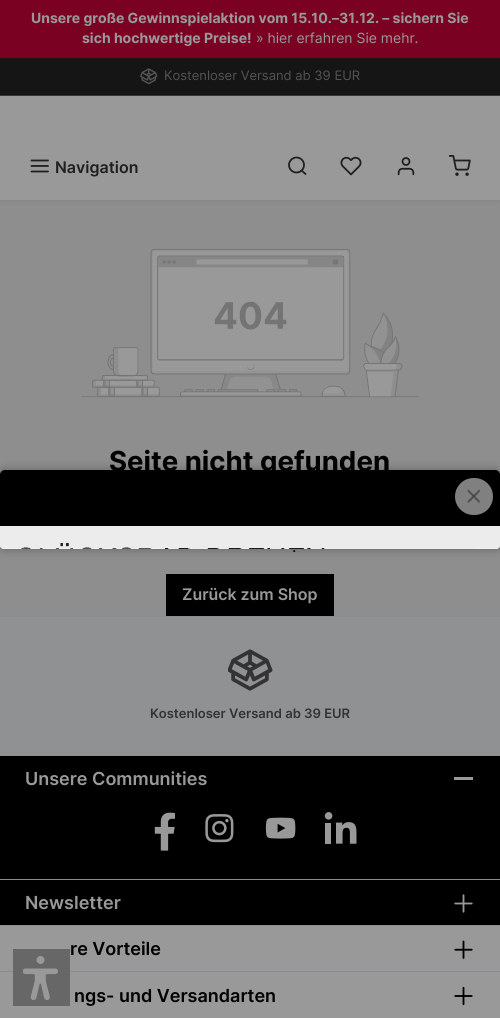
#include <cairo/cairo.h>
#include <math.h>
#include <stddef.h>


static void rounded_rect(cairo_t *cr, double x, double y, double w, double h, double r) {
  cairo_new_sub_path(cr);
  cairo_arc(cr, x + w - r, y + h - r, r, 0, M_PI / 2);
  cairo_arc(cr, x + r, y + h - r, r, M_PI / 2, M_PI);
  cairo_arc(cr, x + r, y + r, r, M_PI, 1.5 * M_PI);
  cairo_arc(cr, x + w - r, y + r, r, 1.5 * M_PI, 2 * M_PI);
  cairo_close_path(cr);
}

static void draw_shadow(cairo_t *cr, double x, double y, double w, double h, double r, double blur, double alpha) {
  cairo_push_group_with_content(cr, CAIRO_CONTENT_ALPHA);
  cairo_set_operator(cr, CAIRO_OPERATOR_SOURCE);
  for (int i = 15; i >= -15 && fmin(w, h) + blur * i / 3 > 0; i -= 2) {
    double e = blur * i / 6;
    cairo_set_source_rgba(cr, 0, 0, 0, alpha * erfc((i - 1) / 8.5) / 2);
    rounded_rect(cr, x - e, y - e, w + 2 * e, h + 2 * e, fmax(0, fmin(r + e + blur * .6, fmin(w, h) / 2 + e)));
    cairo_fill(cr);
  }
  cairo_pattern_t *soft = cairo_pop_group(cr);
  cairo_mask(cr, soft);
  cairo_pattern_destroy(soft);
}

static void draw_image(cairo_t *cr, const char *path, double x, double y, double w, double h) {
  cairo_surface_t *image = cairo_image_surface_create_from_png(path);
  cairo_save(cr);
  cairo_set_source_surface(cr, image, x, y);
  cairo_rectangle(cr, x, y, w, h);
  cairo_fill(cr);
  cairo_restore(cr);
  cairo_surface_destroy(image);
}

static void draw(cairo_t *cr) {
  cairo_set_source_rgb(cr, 142 / 255.0, 142 / 255.0, 142 / 255.0);
  cairo_paint(cr);
  cairo_set_source_rgb(cr, 122 / 255.0, 1 / 255.0, 34 / 255.0);
  cairo_rectangle(cr, 0, 0, 500, 58);
  cairo_fill(cr);
  cairo_set_source_rgb(cr, 21 / 255.0, 21 / 255.0, 21 / 255.0);
  cairo_rectangle(cr, 0, 58, 500, 37);
  cairo_fill(cr);
  cairo_set_source_rgb(cr, 56 / 255.0, 56 / 255.0, 56 / 255.0);
  cairo_rectangle(cr, 0, 95, 500, 1);
  cairo_fill(cr);
  draw_image(cr, "images/1.png", 140, 68, 18, 17);
  cairo_set_source_rgb(cr, 0, 0, 0);
  draw_shadow(cr, 0, 96, 500, 104, 0, 3, 0.1);
  cairo_set_source_rgb(cr, 153 / 255.0, 153 / 255.0, 153 / 255.0);
  cairo_rectangle(cr, 0, 96, 500, 104);
  cairo_fill(cr);
  draw_image(cr, "images/2.png", 30, 159, 19, 14);
  cairo_arc(cr, 296.5, 165, 7.5, 0, 2 * M_PI);
  cairo_set_source_rgb(cr, 31 / 255.0, 31 / 255.0, 31 / 255.0);
  cairo_set_line_width(cr, 1.8);
  cairo_stroke(cr);
  cairo_new_path(cr);
  cairo_move_to(cr, 305.5, 174);
  cairo_line_to(cr, 301.5, 170.5);
  cairo_set_line_cap(cr, CAIRO_LINE_CAP_ROUND);
  cairo_set_line_join(cr, CAIRO_LINE_JOIN_ROUND);
  cairo_stroke(cr);
  draw_image(cr, "images/3.png", 340, 156, 22, 20);
  draw_image(cr, "images/4.png", 397, 157, 18, 19);
  draw_image(cr, "images/5.png", 449, 155, 22, 21);
  draw_image(cr, "images/6.png", 81, 249, 338, 149);
  cairo_set_source_rgb(cr, 0, 0, 0);
  cairo_rectangle(cr, 166, 574, 168, 42);
  cairo_fill(cr);
  cairo_set_source_rgb(cr, 0, 0, 0);
  draw_shadow(cr, 0, 470, 500, 79, 4, 5, 0.3);
  cairo_set_source_rgb(cr, 143 / 255.0, 145 / 255.0, 147 / 255.0);
  cairo_rectangle(cr, 0, 617, 500, 138);
  cairo_fill(cr);
  cairo_set_source_rgb(cr, 137 / 255.0, 141 / 255.0, 144 / 255.0);
  cairo_rectangle(cr, 0, 616, 500, 1);
  cairo_fill(cr);
  draw_image(cr, "images/9.png", 228, 649, 45, 42);
  cairo_set_source_rgb(cr, 153 / 255.0, 153 / 255.0, 153 / 255.0);
  cairo_rectangle(cr, 0, 926, 500, 92);
  cairo_fill(cr);
  cairo_set_source_rgb(cr, 0, 0, 0);
  cairo_rectangle(cr, 0, 756, 500, 169);
  cairo_fill(cr);
  cairo_set_source_rgb(cr, 140 / 255.0, 140 / 255.0, 144 / 255.0);
  cairo_rectangle(cr, 0, 879, 500, 1);
  cairo_fill(cr);
  cairo_set_source_rgb(cr, 153 / 255.0, 153 / 255.0, 153 / 255.0);
  cairo_rectangle(cr, 454, 777, 19, 3);
  cairo_fill(cr);
  draw_image(cr, "images/10.png", 154, 812, 21, 39);
  draw_image(cr, "images/11.png", 205, 814, 29, 29);
  draw_image(cr, "images/12.png", 265, 817, 31, 22);
  draw_image(cr, "images/13.png", 324, 812, 33, 32);
  draw_image(cr, "images/14.png", 454, 894, 19, 19);
  cairo_set_source_rgb(cr, 140 / 255.0, 140 / 255.0, 144 / 255.0);
  cairo_rectangle(cr, 0, 971, 500, 1);
  cairo_fill(cr);
  draw_image(cr, "images/15.png", 454, 940, 19, 19);
  draw_image(cr, "images/16.png", 454, 986, 19, 20);
  cairo_set_source_rgb(cr, 103 / 255.0, 103 / 255.0, 103 / 255.0);
  cairo_rectangle(cr, 13, 949, 57, 57);
  cairo_fill(cr);
  draw_image(cr, "images/17.png", 23, 956, 35, 44);
  cairo_select_font_face(cr, "Inter", CAIRO_FONT_SLANT_NORMAL, CAIRO_FONT_WEIGHT_BOLD);
  cairo_set_font_size(cr, 14);
  cairo_set_source_rgb(cr, 153 / 255.0, 153 / 255.0, 153 / 255.0);
  cairo_move_to(cr, 31, 23);
  cairo_show_text(cr, "Unsere große Gewinnspielaktion vom 15.10.–31.12. – sichern Sie");
  cairo_move_to(cr, 82, 43);
  cairo_show_text(cr, "sich hochwertige Preise!");
  cairo_select_font_face(cr, "Inter", CAIRO_FONT_SLANT_NORMAL, CAIRO_FONT_WEIGHT_NORMAL);
  cairo_move_to(cr, 256, 43);
  cairo_show_text(cr, "» hier erfahren Sie mehr.");
  cairo_set_font_size(cr, 13);
  cairo_set_source_rgb(cr, 83 / 255.0, 83 / 255.0, 83 / 255.0);
  cairo_move_to(cr, 164, 80);
  cairo_show_text(cr, "Kostenloser Versand ab 39 EUR");
  cairo_select_font_face(cr, "Inter SemiBold", CAIRO_FONT_SLANT_NORMAL, CAIRO_FONT_WEIGHT_NORMAL);
  cairo_set_font_size(cr, 16);
  cairo_set_source_rgb(cr, 31 / 255.0, 31 / 255.0, 31 / 255.0);
  cairo_move_to(cr, 55, 173);
  cairo_show_text(cr, "Navigation");
  cairo_select_font_face(cr, "Inter", CAIRO_FONT_SLANT_NORMAL, CAIRO_FONT_WEIGHT_BOLD);
  cairo_set_font_size(cr, 27.6);
  cairo_set_source_rgb(cr, 0, 0, 0);
  cairo_move_to(cr, 109, 471);
  cairo_show_text(cr, "Seite nicht gefunden");
  cairo_select_font_face(cr, "Inter", CAIRO_FONT_SLANT_NORMAL, CAIRO_FONT_WEIGHT_NORMAL);
  cairo_set_font_size(cr, 16);
  cairo_set_source_rgb(cr, 10 / 255.0, 10 / 255.0, 10 / 255.0);
  cairo_move_to(cr, 292, 552);
  cairo_show_text(cr, ".");
  cairo_select_font_face(cr, "Inter SemiBold", CAIRO_FONT_SLANT_NORMAL, CAIRO_FONT_WEIGHT_NORMAL);
  cairo_set_source_rgb(cr, 153 / 255.0, 153 / 255.0, 153 / 255.0);
  cairo_move_to(cr, 182, 600);
  cairo_show_text(cr, "Zurück zum Shop");
  cairo_set_source_rgb(cr, 1, 1, 1);
  rounded_rect(cr, 0, 470, 500, 79, 4);
  cairo_fill(cr);
  cairo_set_source_rgb(cr, 0, 0, 0);
  cairo_new_path(cr);
  cairo_move_to(cr, 4, 470);
  cairo_line_to(cr, 496, 470);
  cairo_curve_to(cr, 498, 470, 500, 472, 500, 474);
  cairo_line_to(cr, 500, 526);
  cairo_line_to(cr, 0, 526);
  cairo_line_to(cr, 0, 474);
  cairo_curve_to(cr, 0, 472, 2, 470, 4, 470);
  cairo_close_path(cr);
  cairo_fill(cr);
  cairo_set_source_rgb(cr, 128 / 255.0, 128 / 255.0, 128 / 255.0);
  rounded_rect(cr, 455, 478, 38, 37, 18.5);
  cairo_fill(cr);
  draw_image(cr, "images/7.png", 467, 489, 13, 14);
  draw_image(cr, "images/8.png", 0, 526, 500, 23);
  cairo_set_font_size(cr, 13);
  cairo_set_source_rgb(cr, 51 / 255.0, 51 / 255.0, 51 / 255.0);
  cairo_move_to(cr, 150, 718);
  cairo_show_text(cr, "Kostenloser Versand ab 39 EUR");
  cairo_set_font_size(cr, 18);
  cairo_set_source_rgb(cr, 153 / 255.0, 153 / 255.0, 153 / 255.0);
  cairo_move_to(cr, 25, 785);
  cairo_show_text(cr, "Unsere Communities");
  cairo_move_to(cr, 25, 909);
  cairo_show_text(cr, "Newsletter");
  cairo_set_source_rgb(cr, 0, 0, 0);
  cairo_move_to(cr, 70, 955);
  cairo_show_text(cr, "re Vorteile");
  cairo_move_to(cr, 74, 1002);
  cairo_show_text(cr, "ngs- und Versandarten");
}

int main(void) {
  cairo_surface_t *surface = cairo_image_surface_create(CAIRO_FORMAT_RGB24, 500, 1018);
  cairo_t *cr = cairo_create(surface);
  cairo_font_options_t *options = cairo_font_options_create();
  cairo_font_options_set_hint_metrics(options, CAIRO_HINT_METRICS_OFF);
  cairo_font_options_set_hint_style(options, CAIRO_HINT_STYLE_NONE);
  cairo_set_font_options(cr, options);
  cairo_set_miter_limit(cr, 4);
  draw(cr);
  cairo_surface_write_to_png(surface, "out.png");
  cairo_font_options_destroy(options);
  cairo_destroy(cr);
  cairo_surface_destroy(surface);
  return 0;
}
